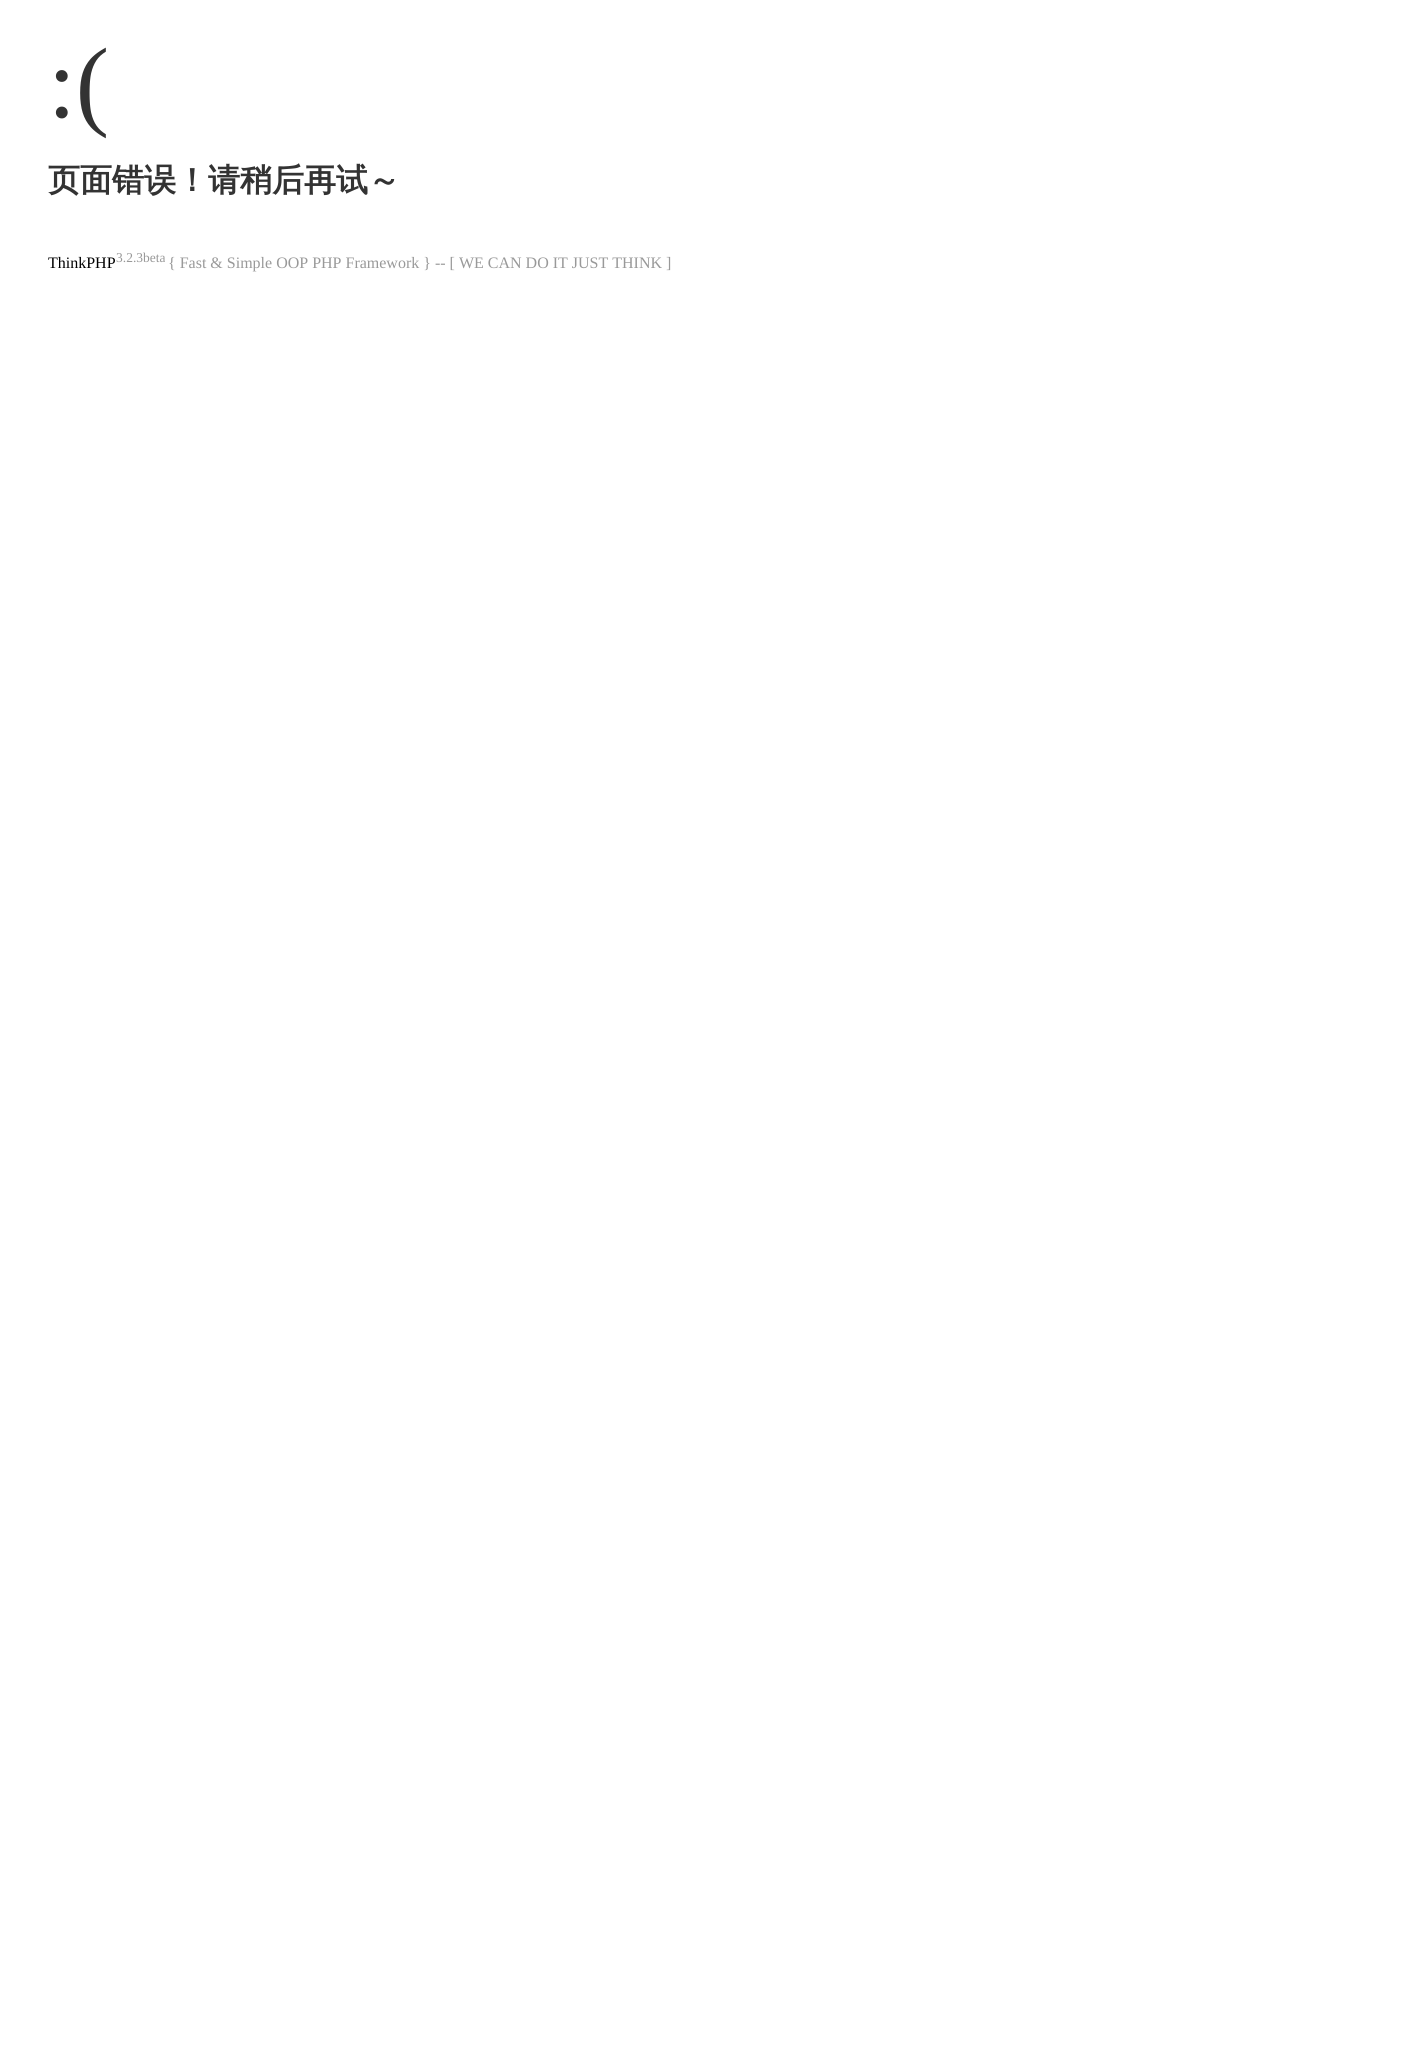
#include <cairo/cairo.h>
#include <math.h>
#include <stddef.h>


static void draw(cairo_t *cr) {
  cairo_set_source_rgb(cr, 1, 1, 1);
  cairo_paint(cr);
  cairo_select_font_face(cr, "Liberation Serif", CAIRO_FONT_SLANT_NORMAL, CAIRO_FONT_WEIGHT_NORMAL);
  cairo_set_font_size(cr, 100);
  cairo_set_source_rgb(cr, 51 / 255.0, 51 / 255.0, 51 / 255.0);
  cairo_move_to(cr, 48, 117);
  cairo_show_text(cr, ":(");
  cairo_select_font_face(cr, "WenQuanYi Zen Hei", CAIRO_FONT_SLANT_NORMAL, CAIRO_FONT_WEIGHT_BOLD);
  cairo_set_font_size(cr, 32);
  cairo_move_to(cr, 48, 191);
  cairo_show_text(cr, "页面错误！请稍后再试～");
  cairo_select_font_face(cr, "Liberation Serif", CAIRO_FONT_SLANT_NORMAL, CAIRO_FONT_WEIGHT_NORMAL);
  cairo_set_font_size(cr, 16);
  cairo_set_source_rgb(cr, 0, 0, 0);
  cairo_move_to(cr, 48, 268);
  cairo_show_text(cr, "ThinkPHP");
  cairo_set_font_size(cr, 13.5);
  cairo_set_source_rgb(cr, 153 / 255.0, 153 / 255.0, 153 / 255.0);
  cairo_move_to(cr, 116, 262);
  cairo_show_text(cr, "3.2.3beta");
  cairo_set_font_size(cr, 16);
  cairo_move_to(cr, 168, 268);
  cairo_show_text(cr, "{ Fast & Simple OOP PHP Framework } -- [ WE CAN DO IT JUST THINK ]");
}

int main(void) {
  cairo_surface_t *surface = cairo_image_surface_create(CAIRO_FORMAT_RGB24, 1414, 2065);
  cairo_t *cr = cairo_create(surface);
  cairo_font_options_t *options = cairo_font_options_create();
  cairo_font_options_set_hint_metrics(options, CAIRO_HINT_METRICS_OFF);
  cairo_font_options_set_hint_style(options, CAIRO_HINT_STYLE_NONE);
  cairo_set_font_options(cr, options);
  cairo_set_miter_limit(cr, 4);
  draw(cr);
  cairo_surface_write_to_png(surface, "out.png");
  cairo_font_options_destroy(options);
  cairo_destroy(cr);
  cairo_surface_destroy(surface);
  return 0;
}
